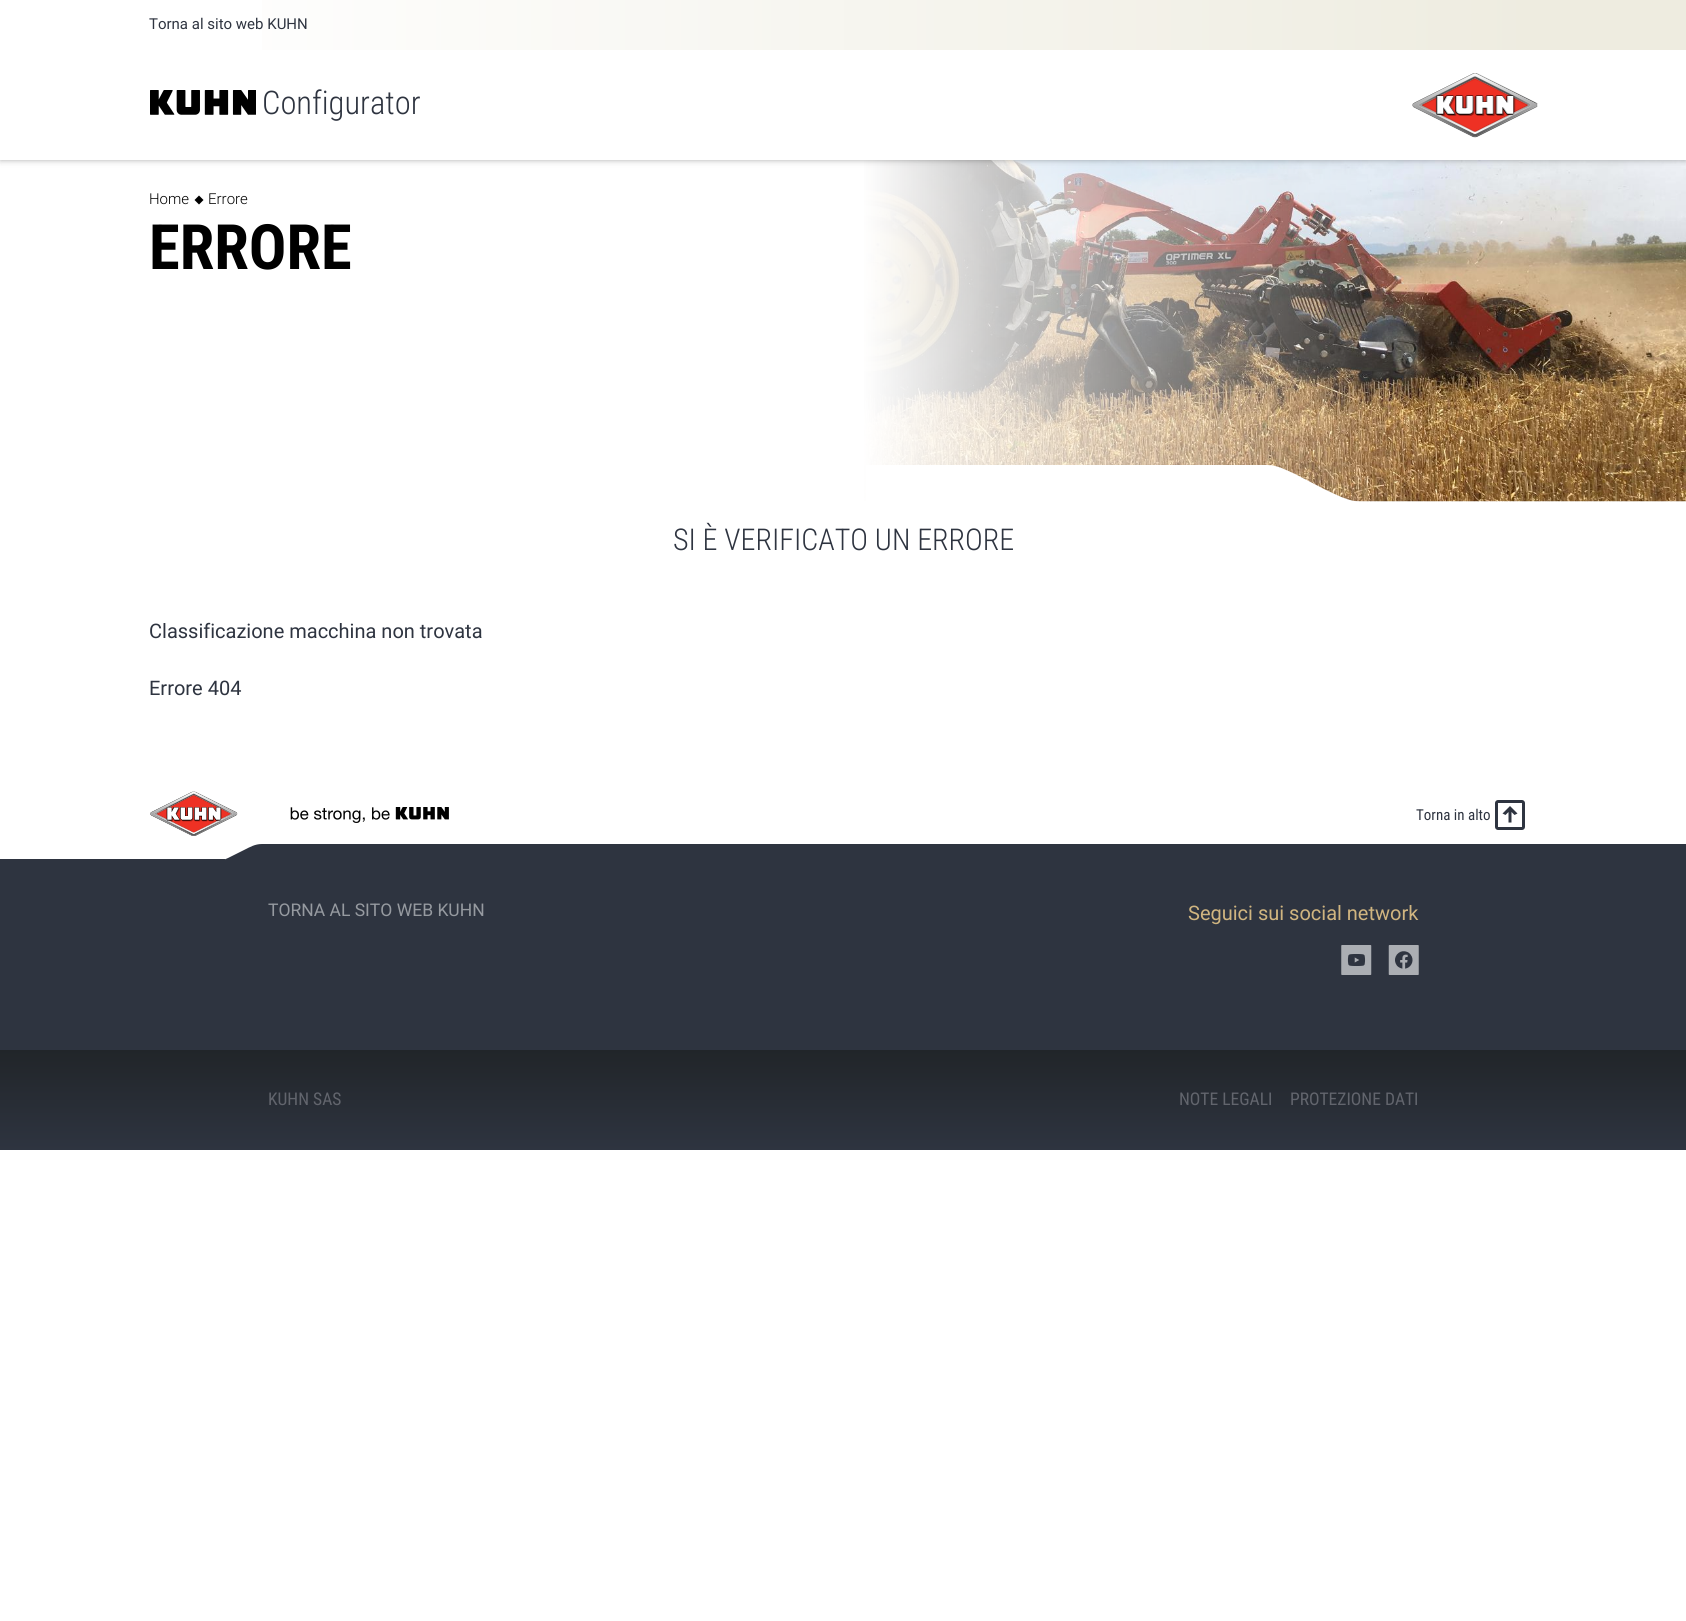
#include <cairo/cairo.h>
#include <math.h>
#include <stddef.h>


static void rounded_rect(cairo_t *cr, double x, double y, double w, double h, double r) {
  cairo_new_sub_path(cr);
  cairo_arc(cr, x + w - r, y + h - r, r, 0, M_PI / 2);
  cairo_arc(cr, x + r, y + h - r, r, M_PI / 2, M_PI);
  cairo_arc(cr, x + r, y + r, r, M_PI, 1.5 * M_PI);
  cairo_arc(cr, x + w - r, y + r, r, 1.5 * M_PI, 2 * M_PI);
  cairo_close_path(cr);
}

static void draw_shadow(cairo_t *cr, double x, double y, double w, double h, double r, double blur, double alpha) {
  cairo_push_group_with_content(cr, CAIRO_CONTENT_ALPHA);
  cairo_set_operator(cr, CAIRO_OPERATOR_SOURCE);
  for (int i = 15; i >= -15 && fmin(w, h) + blur * i / 3 > 0; i -= 2) {
    double e = blur * i / 6;
    cairo_set_source_rgba(cr, 0, 0, 0, alpha * erfc((i - 1) / 8.5) / 2);
    rounded_rect(cr, x - e, y - e, w + 2 * e, h + 2 * e, fmax(0, fmin(r + e + blur * .6, fmin(w, h) / 2 + e)));
    cairo_fill(cr);
  }
  cairo_pattern_t *soft = cairo_pop_group(cr);
  cairo_mask(cr, soft);
  cairo_pattern_destroy(soft);
}

static void draw_image(cairo_t *cr, const char *path, double x, double y, double w, double h) {
  cairo_surface_t *image = cairo_image_surface_create_from_png(path);
  cairo_save(cr);
  cairo_set_source_surface(cr, image, x, y);
  cairo_rectangle(cr, x, y, w, h);
  cairo_fill(cr);
  cairo_restore(cr);
  cairo_surface_destroy(image);
}

static void draw(cairo_t *cr) {
  cairo_pattern_t *gradient;
  cairo_set_source_rgb(cr, 1, 1, 1);
  cairo_paint(cr);
  draw_image(cr, "images/3.png", 864, 160, 822, 342);
  gradient = cairo_pattern_create_linear(0, 331, 1434, 331);
  cairo_pattern_add_color_stop_rgba(gradient, 0, 1, 1, 1, 1);
  cairo_pattern_add_color_stop_rgba(gradient, 0.6, 1, 1, 1, 1);
  cairo_pattern_add_color_stop_rgba(gradient, 1, 1, 1, 1, 0);
  cairo_set_source(cr, gradient);
  cairo_pattern_destroy(gradient);
  cairo_rectangle(cr, 864, 160, 558, 342);
  cairo_fill(cr);
  cairo_set_source_rgb(cr, 0, 0, 0);
  draw_shadow(cr, 0, 1, 1686, 160, 0, 1, 0.1);
  draw_shadow(cr, 0, 3, 1686, 160, 0, 2.5, 0.1);
  cairo_set_source_rgb(cr, 1, 1, 1);
  cairo_rectangle(cr, 0, 0, 1686, 160);
  cairo_fill(cr);
  cairo_set_source_rgb(cr, 238 / 255.0, 236 / 255.0, 224 / 255.0);
  cairo_rectangle(cr, 1538, 0, 148, 50);
  cairo_fill(cr);
  gradient = cairo_pattern_create_linear(150, 25, 1538, 25);
  cairo_pattern_add_color_stop_rgba(gradient, 0, 1, 1, 1, 1);
  cairo_pattern_add_color_stop_rgba(gradient, 1, 238 / 255.0, 236 / 255.0, 224 / 255.0, 1);
  cairo_set_source(cr, gradient);
  cairo_pattern_destroy(gradient);
  cairo_rectangle(cr, 262, 0, 1276, 50);
  cairo_fill(cr);
  draw_image(cr, "images/1.png", 150, 90, 106, 25);
  draw_image(cr, "images/2.png", 1412, 73, 126, 65);
  cairo_set_source_rgb(cr, 0, 0, 0);
  cairo_new_path(cr);
  cairo_move_to(cr, 199, 195.5);
  cairo_line_to(cr, 203.5, 200);
  cairo_line_to(cr, 199, 204.5);
  cairo_line_to(cr, 194.5, 200);
  cairo_close_path(cr);
  cairo_fill(cr);
  cairo_set_source_rgb(cr, 1, 1, 1);
  cairo_rectangle(cr, 866, 465, 399, 37);
  cairo_fill(cr);
  cairo_save(cr);
  cairo_rectangle(cr, 1265, 465, 98, 38);
  cairo_clip(cr);
  cairo_set_fill_rule(cr, CAIRO_FILL_RULE_EVEN_ODD);
  cairo_new_path(cr);
  cairo_move_to(cr, 1267, 465);
  cairo_curve_to(cr, 1277, 465, 1286, 470, 1295, 474);
  cairo_line_to(cr, 1324, 489);
  cairo_curve_to(cr, 1337, 495, 1349, 502, 1364, 502);
  cairo_line_to(cr, 1264, 502);
  cairo_line_to(cr, 1264, 465);
  cairo_close_path(cr);
  cairo_fill(cr);
  cairo_restore(cr);
  draw_image(cr, "images/4.png", 150, 791, 88, 45);
  draw_image(cr, "images/5.png", 290, 807, 159, 16);
  draw_image(cr, "images/6.png", 1495, 800, 30, 30);
  cairo_set_source_rgb(cr, 46 / 255.0, 52 / 255.0, 64 / 255.0);
  cairo_rectangle(cr, 0, 844, 1686, 206);
  cairo_fill(cr);
  cairo_set_source_rgb(cr, 1, 1, 1);
  cairo_rectangle(cr, 0, 844, 225, 15);
  cairo_fill(cr);
  cairo_save(cr);
  cairo_rectangle(cr, 225, 843, 38, 17);
  cairo_clip(cr);
  cairo_set_fill_rule(cr, CAIRO_FILL_RULE_EVEN_ODD);
  cairo_new_path(cr);
  cairo_move_to(cr, 217, 861);
  cairo_curve_to(cr, 222, 861, 226, 859, 230, 857);
  cairo_line_to(cr, 244, 850);
  cairo_curve_to(cr, 250, 847, 255, 844, 262, 844);
  cairo_line_to(cr, 216, 844);
  cairo_line_to(cr, 216, 861);
  cairo_close_path(cr);
  cairo_fill(cr);
  cairo_restore(cr);
  draw_image(cr, "images/7.png", 1341, 945, 31, 30);
  draw_image(cr, "images/8.png", 1388, 945, 31, 30);
  gradient = cairo_pattern_create_linear(843, 1150, 843, 1050);
  cairo_pattern_add_color_stop_rgba(gradient, 0, 46 / 255.0, 52 / 255.0, 64 / 255.0, 1);
  cairo_pattern_add_color_stop_rgba(gradient, 1, 33 / 255.0, 37 / 255.0, 41 / 255.0, 1);
  cairo_set_source(cr, gradient);
  cairo_pattern_destroy(gradient);
  cairo_rectangle(cr, 0, 1050, 1686, 100);
  cairo_fill(cr);
  cairo_select_font_face(cr, "Roboto", CAIRO_FONT_SLANT_NORMAL, CAIRO_FONT_WEIGHT_NORMAL);
  cairo_set_font_size(cr, 15);
  cairo_set_source_rgb(cr, 46 / 255.0, 52 / 255.0, 64 / 255.0);
  cairo_move_to(cr, 149, 29);
  cairo_show_text(cr, "Torna al sito web KUHN");
  cairo_select_font_face(cr, "Roboto Condensed Light", CAIRO_FONT_SLANT_NORMAL, CAIRO_FONT_WEIGHT_NORMAL);
  cairo_set_font_size(cr, 32.5);
  cairo_move_to(cr, 262, 114);
  cairo_show_text(cr, "Configurator");
  cairo_select_font_face(cr, "Roboto Light", CAIRO_FONT_SLANT_NORMAL, CAIRO_FONT_WEIGHT_NORMAL);
  cairo_set_font_size(cr, 15);
  cairo_set_source_rgb(cr, 0, 0, 0);
  cairo_move_to(cr, 149, 204);
  cairo_show_text(cr, "Home");
  cairo_move_to(cr, 208, 204);
  cairo_show_text(cr, "Errore");
  cairo_select_font_face(cr, "Roboto Condensed", CAIRO_FONT_SLANT_NORMAL, CAIRO_FONT_WEIGHT_BOLD);
  cairo_set_font_size(cr, 62.5);
  cairo_move_to(cr, 149, 269);
  cairo_show_text(cr, "ERRORE");
  cairo_select_font_face(cr, "Roboto Condensed Light", CAIRO_FONT_SLANT_NORMAL, CAIRO_FONT_WEIGHT_NORMAL);
  cairo_set_font_size(cr, 30);
  cairo_set_source_rgb(cr, 46 / 255.0, 52 / 255.0, 64 / 255.0);
  cairo_move_to(cr, 673, 550);
  cairo_show_text(cr, "SI È VERIFICATO UN ERRORE");
  cairo_select_font_face(cr, "Roboto", CAIRO_FONT_SLANT_NORMAL, CAIRO_FONT_WEIGHT_NORMAL);
  cairo_set_font_size(cr, 20);
  cairo_move_to(cr, 149, 638);
  cairo_show_text(cr, "Classificazione macchina non trovata");
  cairo_move_to(cr, 149, 695);
  cairo_show_text(cr, "Errore 404");
  cairo_select_font_face(cr, "Roboto Condensed", CAIRO_FONT_SLANT_NORMAL, CAIRO_FONT_WEIGHT_NORMAL);
  cairo_set_font_size(cr, 15);
  cairo_move_to(cr, 1416, 820);
  cairo_show_text(cr, "Torna in alto");
  cairo_select_font_face(cr, "Roboto", CAIRO_FONT_SLANT_NORMAL, CAIRO_FONT_WEIGHT_NORMAL);
  cairo_set_font_size(cr, 17.5);
  cairo_set_source_rgb(cr, 150 / 255.0, 154 / 255.0, 160 / 255.0);
  cairo_move_to(cr, 268, 916);
  cairo_show_text(cr, "TORNA AL SITO WEB KUHN");
  cairo_set_font_size(cr, 20);
  cairo_set_source_rgb(cr, 208 / 255.0, 181 / 255.0, 128 / 255.0);
  cairo_move_to(cr, 1188, 920);
  cairo_show_text(cr, "Seguici sui social network");
  cairo_select_font_face(cr, "Roboto Condensed", CAIRO_FONT_SLANT_NORMAL, CAIRO_FONT_WEIGHT_NORMAL);
  cairo_set_font_size(cr, 17.5);
  cairo_set_source_rgb(cr, 98 / 255.0, 101 / 255.0, 109 / 255.0);
  cairo_move_to(cr, 268, 1105);
  cairo_show_text(cr, "KUHN SAS");
  cairo_move_to(cr, 1179, 1105);
  cairo_show_text(cr, "NOTE LEGALI");
  cairo_move_to(cr, 1290, 1105);
  cairo_show_text(cr, "PROTEZIONE DATI");
}

int main(void) {
  cairo_surface_t *surface = cairo_image_surface_create(CAIRO_FORMAT_RGB24, 1686, 1621);
  cairo_t *cr = cairo_create(surface);
  cairo_font_options_t *options = cairo_font_options_create();
  cairo_font_options_set_hint_metrics(options, CAIRO_HINT_METRICS_OFF);
  cairo_font_options_set_hint_style(options, CAIRO_HINT_STYLE_NONE);
  cairo_set_font_options(cr, options);
  cairo_set_miter_limit(cr, 4);
  draw(cr);
  cairo_surface_write_to_png(surface, "out.png");
  cairo_font_options_destroy(options);
  cairo_destroy(cr);
  cairo_surface_destroy(surface);
  return 0;
}
